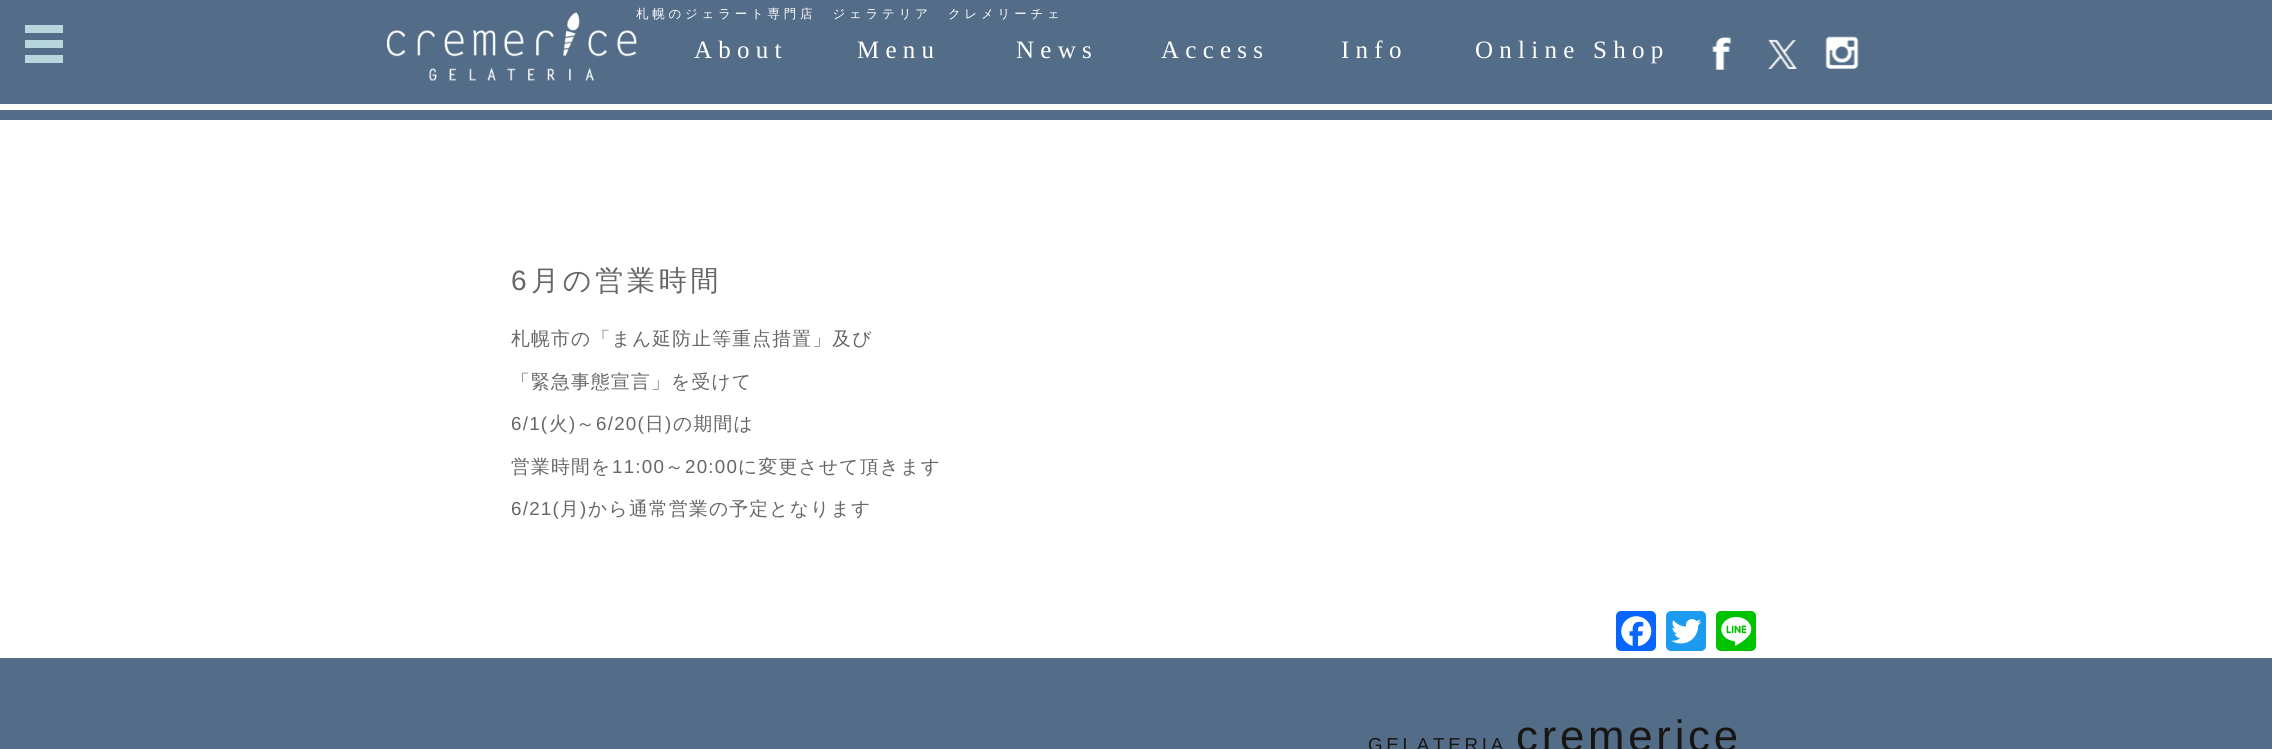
#include <cairo/cairo.h>
#include <math.h>
#include <stddef.h>


static void draw_spaced(cairo_t *cr, double x, double y, const char *s, double letter, double word) {
  cairo_move_to(cr, x, y);
  while (*s) {
    char ch[5] = {0};
    int n = 0;
    do ch[n++] = *s++; while ((*s & 0xC0) == 0x80);
    cairo_show_text(cr, ch);
    cairo_rel_move_to(cr, letter + word * (*ch == ' '), 0);
  }
}

static void rounded_rect(cairo_t *cr, double x, double y, double w, double h, double r) {
  cairo_new_sub_path(cr);
  cairo_arc(cr, x + w - r, y + h - r, r, 0, M_PI / 2);
  cairo_arc(cr, x + r, y + h - r, r, M_PI / 2, M_PI);
  cairo_arc(cr, x + r, y + r, r, M_PI, 1.5 * M_PI);
  cairo_arc(cr, x + w - r, y + r, r, 1.5 * M_PI, 2 * M_PI);
  cairo_close_path(cr);
}

static void draw_image(cairo_t *cr, const char *path, double x, double y, double w, double h) {
  cairo_surface_t *image = cairo_image_surface_create_from_png(path);
  cairo_save(cr);
  cairo_set_source_surface(cr, image, x, y);
  cairo_rectangle(cr, x, y, w, h);
  cairo_fill(cr);
  cairo_restore(cr);
  cairo_surface_destroy(image);
}

static void draw(cairo_t *cr) {
  cairo_set_source_rgb(cr, 1, 1, 1);
  cairo_paint(cr);
  cairo_set_source_rgb(cr, 83 / 255.0, 109 / 255.0, 136 / 255.0);
  cairo_rectangle(cr, 0, 0, 2272, 104);
  cairo_fill(cr);
  cairo_set_source_rgb(cr, 183 / 255.0, 213 / 255.0, 220 / 255.0);
  cairo_rectangle(cr, 25, 40, 38, 8);
  cairo_fill(cr);
  cairo_rectangle(cr, 25, 25, 38, 8);
  cairo_fill(cr);
  cairo_rectangle(cr, 25, 55, 38, 8);
  cairo_fill(cr);
  cairo_set_source_rgb(cr, 83 / 255.0, 109 / 255.0, 136 / 255.0);
  cairo_rectangle(cr, 0, 110, 2272, 10);
  cairo_fill(cr);
  draw_image(cr, "images/1.png", 387, 12, 250, 69);
  draw_image(cr, "images/2.png", 1712, 37, 20, 33);
  draw_image(cr, "images/3.png", 1768, 39, 30, 30);
  draw_image(cr, "images/4.png", 1825, 36, 34, 33);
  cairo_set_source_rgb(cr, 8 / 255.0, 102 / 255.0, 1);
  rounded_rect(cr, 1616, 611, 40, 40, 5);
  cairo_fill(cr);
  draw_image(cr, "images/5.png", 1621, 616, 31, 31);
  cairo_set_source_rgb(cr, 29 / 255.0, 155 / 255.0, 240 / 255.0);
  rounded_rect(cr, 1666, 611, 40, 40, 5);
  cairo_fill(cr);
  draw_image(cr, "images/6.png", 1671, 619, 31, 25);
  cairo_set_source_rgb(cr, 0, 195 / 255.0, 0);
  rounded_rect(cr, 1716, 611, 40, 40, 5);
  cairo_fill(cr);
  draw_image(cr, "images/7.png", 1721, 617, 31, 29);
  cairo_set_source_rgb(cr, 83 / 255.0, 109 / 255.0, 136 / 255.0);
  cairo_rectangle(cr, 0, 658, 2272, 91);
  cairo_fill(cr);
  cairo_select_font_face(cr, "WenQuanYi Zen Hei Medium", CAIRO_FONT_SLANT_NORMAL, CAIRO_FONT_WEIGHT_NORMAL);
  cairo_set_font_size(cr, 12.5);
  cairo_set_source_rgb(cr, 1, 1, 1);
  draw_spaced(cr, 636, 18, "札幌のジェラート専門店　ジェラテリア　クレメリーチェ", 3.75, 0);
  cairo_select_font_face(cr, "Liberation Serif", CAIRO_FONT_SLANT_NORMAL, CAIRO_FONT_WEIGHT_NORMAL);
  cairo_set_font_size(cr, 25);
  draw_spaced(cr, 694, 58, "About", 6.25, 0);
  draw_spaced(cr, 857, 58, "Menu", 6.25, 0);
  draw_spaced(cr, 1016, 58, "News", 6.25, 0);
  draw_spaced(cr, 1161, 58, "Access", 6.25, 0);
  draw_spaced(cr, 1341, 58, "Info", 6.25, 0);
  draw_spaced(cr, 1475, 58, "Online Shop", 6.25, 0);
  cairo_select_font_face(cr, "Liberation Sans", CAIRO_FONT_SLANT_NORMAL, CAIRO_FONT_WEIGHT_NORMAL);
  cairo_set_font_size(cr, 28);
  cairo_set_source_rgb(cr, 102 / 255.0, 102 / 255.0, 102 / 255.0);
  draw_spaced(cr, 511, 290, "6", 3.75, 0);
  cairo_select_font_face(cr, "WenQuanYi Zen Hei Medium", CAIRO_FONT_SLANT_NORMAL, CAIRO_FONT_WEIGHT_NORMAL);
  draw_spaced(cr, 531, 290, "月の営業時間", 3.75, 0);
  cairo_set_font_size(cr, 18.75);
  draw_spaced(cr, 511, 345, "札幌市の「まん延防止等重点措置」及び", 1.25, 0);
  draw_spaced(cr, 511, 388, "「緊急事態宣言」を受けて", 1.25, 0);
  cairo_select_font_face(cr, "Liberation Sans", CAIRO_FONT_SLANT_NORMAL, CAIRO_FONT_WEIGHT_NORMAL);
  draw_spaced(cr, 511, 430, "6/1(", 1.25, 0);
  cairo_select_font_face(cr, "WenQuanYi Zen Hei Medium", CAIRO_FONT_SLANT_NORMAL, CAIRO_FONT_WEIGHT_NORMAL);
  draw_spaced(cr, 549, 430, "火", 1.25, 0);
  cairo_select_font_face(cr, "Liberation Sans", CAIRO_FONT_SLANT_NORMAL, CAIRO_FONT_WEIGHT_NORMAL);
  draw_spaced(cr, 569, 430, ")", 1.25, 0);
  cairo_select_font_face(cr, "WenQuanYi Zen Hei Medium", CAIRO_FONT_SLANT_NORMAL, CAIRO_FONT_WEIGHT_NORMAL);
  draw_spaced(cr, 576, 430, "～", 1.25, 0);
  cairo_select_font_face(cr, "Liberation Sans", CAIRO_FONT_SLANT_NORMAL, CAIRO_FONT_WEIGHT_NORMAL);
  draw_spaced(cr, 596, 430, "6/20(", 1.25, 0);
  cairo_select_font_face(cr, "WenQuanYi Zen Hei Medium", CAIRO_FONT_SLANT_NORMAL, CAIRO_FONT_WEIGHT_NORMAL);
  draw_spaced(cr, 645, 430, "日", 1.25, 0);
  cairo_select_font_face(cr, "Liberation Sans", CAIRO_FONT_SLANT_NORMAL, CAIRO_FONT_WEIGHT_NORMAL);
  draw_spaced(cr, 665, 430, ")", 1.25, 0);
  cairo_select_font_face(cr, "WenQuanYi Zen Hei Medium", CAIRO_FONT_SLANT_NORMAL, CAIRO_FONT_WEIGHT_NORMAL);
  draw_spaced(cr, 673, 430, "の期間は", 1.25, 0);
  draw_spaced(cr, 511, 473, "営業時間を", 1.25, 0);
  cairo_select_font_face(cr, "Liberation Sans", CAIRO_FONT_SLANT_NORMAL, CAIRO_FONT_WEIGHT_NORMAL);
  draw_spaced(cr, 612, 473, "11:00", 1.25, 0);
  cairo_select_font_face(cr, "WenQuanYi Zen Hei Medium", CAIRO_FONT_SLANT_NORMAL, CAIRO_FONT_WEIGHT_NORMAL);
  draw_spaced(cr, 665, 473, "～", 1.25, 0);
  cairo_select_font_face(cr, "Liberation Sans", CAIRO_FONT_SLANT_NORMAL, CAIRO_FONT_WEIGHT_NORMAL);
  draw_spaced(cr, 685, 473, "20:00", 1.25, 0);
  cairo_select_font_face(cr, "WenQuanYi Zen Hei Medium", CAIRO_FONT_SLANT_NORMAL, CAIRO_FONT_WEIGHT_NORMAL);
  draw_spaced(cr, 738, 473, "に変更させて頂きます", 1.25, 0);
  cairo_select_font_face(cr, "Liberation Sans", CAIRO_FONT_SLANT_NORMAL, CAIRO_FONT_WEIGHT_NORMAL);
  draw_spaced(cr, 511, 515, "6/21(", 1.25, 0);
  cairo_select_font_face(cr, "WenQuanYi Zen Hei Medium", CAIRO_FONT_SLANT_NORMAL, CAIRO_FONT_WEIGHT_NORMAL);
  draw_spaced(cr, 560, 515, "月", 1.25, 0);
  cairo_select_font_face(cr, "Liberation Sans", CAIRO_FONT_SLANT_NORMAL, CAIRO_FONT_WEIGHT_NORMAL);
  draw_spaced(cr, 580, 515, ")", 1.25, 0);
  cairo_select_font_face(cr, "WenQuanYi Zen Hei Medium", CAIRO_FONT_SLANT_NORMAL, CAIRO_FONT_WEIGHT_NORMAL);
  draw_spaced(cr, 588, 515, "から通常営業の予定となります", 1.25, 0);
  cairo_select_font_face(cr, "Liberation Sans", CAIRO_FONT_SLANT_NORMAL, CAIRO_FONT_WEIGHT_NORMAL);
  cairo_set_source_rgb(cr, 24 / 255.0, 21 / 255.0, 18 / 255.0);
  draw_spaced(cr, 1368, 751, "GELATERIA", 3.75, 0);
  cairo_set_font_size(cr, 43.75);
  draw_spaced(cr, 1516, 751, "cremerice", 3.75, 0);
}

int main(void) {
  cairo_surface_t *surface = cairo_image_surface_create(CAIRO_FORMAT_RGB24, 2272, 749);
  cairo_t *cr = cairo_create(surface);
  cairo_font_options_t *options = cairo_font_options_create();
  cairo_font_options_set_hint_metrics(options, CAIRO_HINT_METRICS_OFF);
  cairo_font_options_set_hint_style(options, CAIRO_HINT_STYLE_NONE);
  cairo_set_font_options(cr, options);
  cairo_set_miter_limit(cr, 4);
  draw(cr);
  cairo_surface_write_to_png(surface, "out.png");
  cairo_font_options_destroy(options);
  cairo_destroy(cr);
  cairo_surface_destroy(surface);
  return 0;
}
